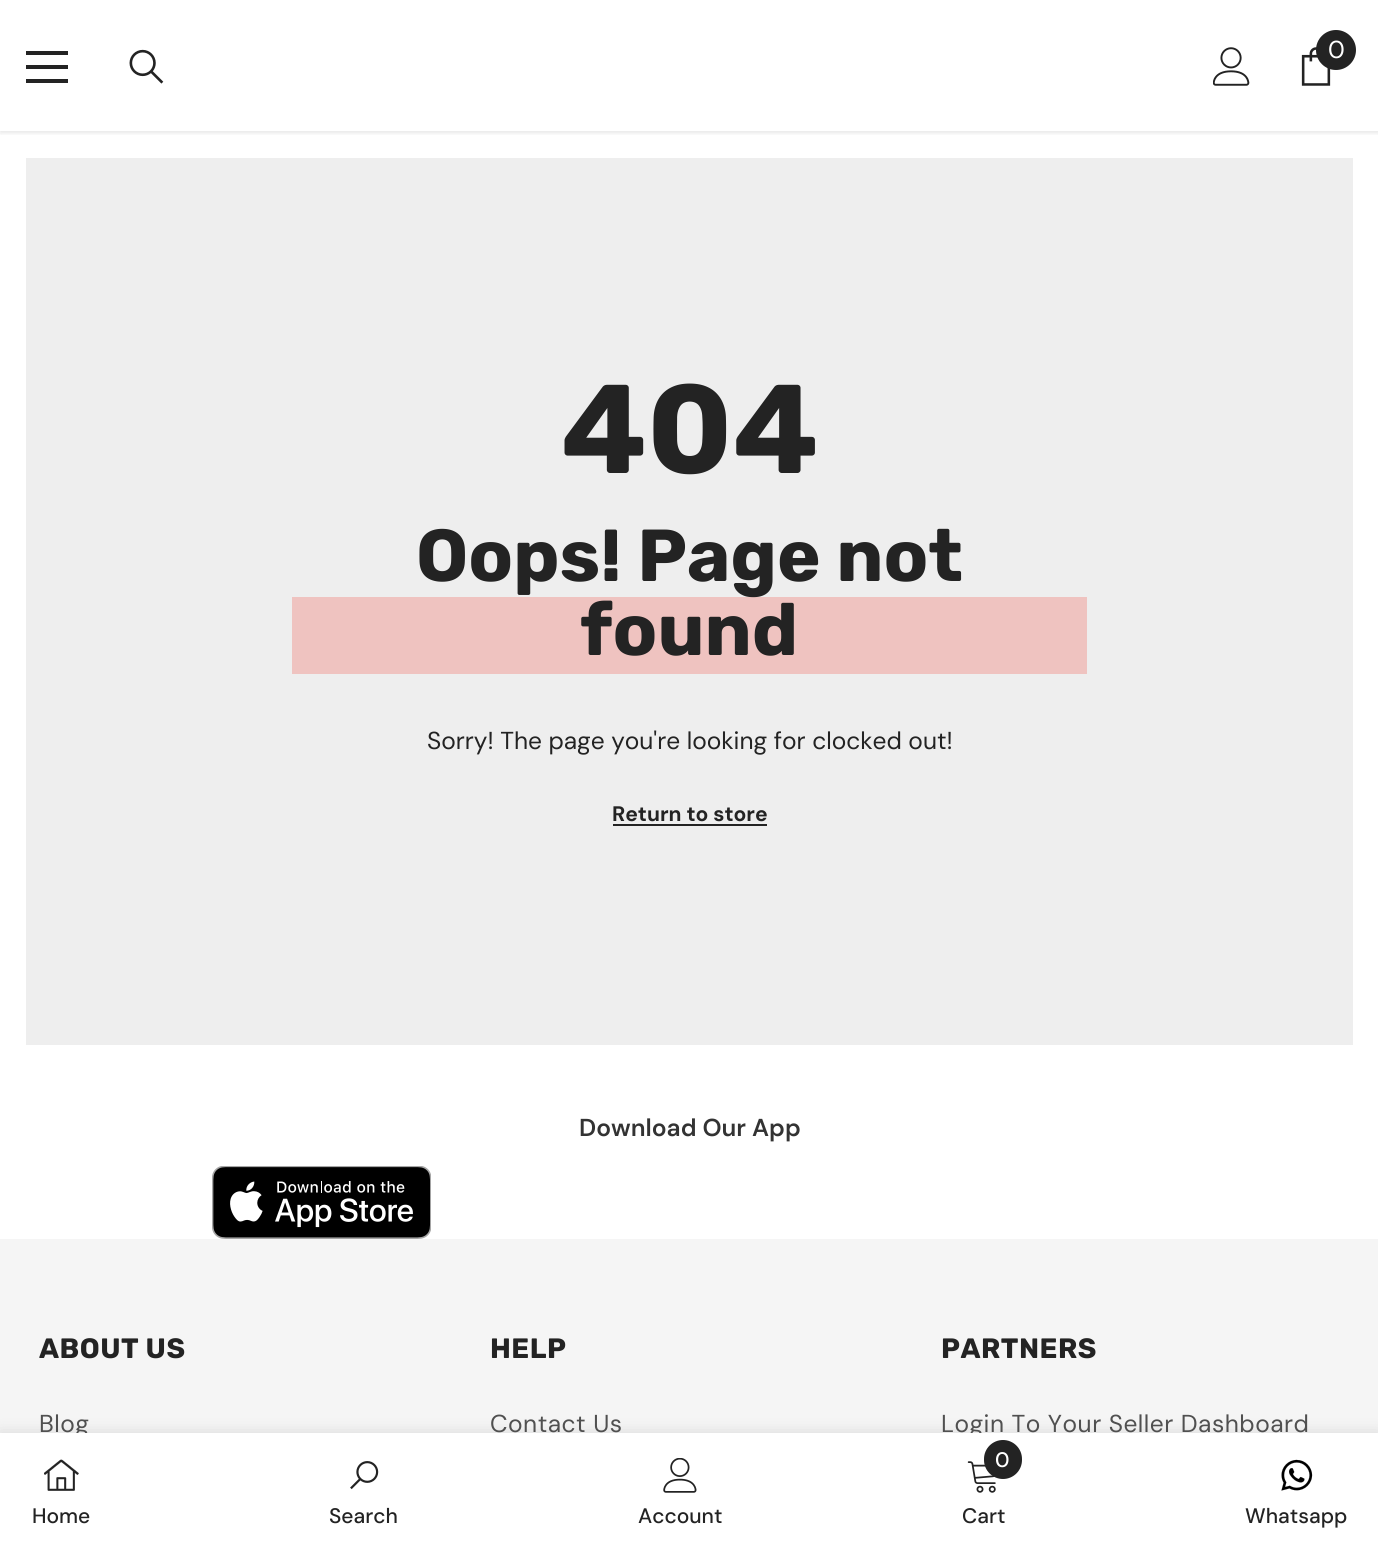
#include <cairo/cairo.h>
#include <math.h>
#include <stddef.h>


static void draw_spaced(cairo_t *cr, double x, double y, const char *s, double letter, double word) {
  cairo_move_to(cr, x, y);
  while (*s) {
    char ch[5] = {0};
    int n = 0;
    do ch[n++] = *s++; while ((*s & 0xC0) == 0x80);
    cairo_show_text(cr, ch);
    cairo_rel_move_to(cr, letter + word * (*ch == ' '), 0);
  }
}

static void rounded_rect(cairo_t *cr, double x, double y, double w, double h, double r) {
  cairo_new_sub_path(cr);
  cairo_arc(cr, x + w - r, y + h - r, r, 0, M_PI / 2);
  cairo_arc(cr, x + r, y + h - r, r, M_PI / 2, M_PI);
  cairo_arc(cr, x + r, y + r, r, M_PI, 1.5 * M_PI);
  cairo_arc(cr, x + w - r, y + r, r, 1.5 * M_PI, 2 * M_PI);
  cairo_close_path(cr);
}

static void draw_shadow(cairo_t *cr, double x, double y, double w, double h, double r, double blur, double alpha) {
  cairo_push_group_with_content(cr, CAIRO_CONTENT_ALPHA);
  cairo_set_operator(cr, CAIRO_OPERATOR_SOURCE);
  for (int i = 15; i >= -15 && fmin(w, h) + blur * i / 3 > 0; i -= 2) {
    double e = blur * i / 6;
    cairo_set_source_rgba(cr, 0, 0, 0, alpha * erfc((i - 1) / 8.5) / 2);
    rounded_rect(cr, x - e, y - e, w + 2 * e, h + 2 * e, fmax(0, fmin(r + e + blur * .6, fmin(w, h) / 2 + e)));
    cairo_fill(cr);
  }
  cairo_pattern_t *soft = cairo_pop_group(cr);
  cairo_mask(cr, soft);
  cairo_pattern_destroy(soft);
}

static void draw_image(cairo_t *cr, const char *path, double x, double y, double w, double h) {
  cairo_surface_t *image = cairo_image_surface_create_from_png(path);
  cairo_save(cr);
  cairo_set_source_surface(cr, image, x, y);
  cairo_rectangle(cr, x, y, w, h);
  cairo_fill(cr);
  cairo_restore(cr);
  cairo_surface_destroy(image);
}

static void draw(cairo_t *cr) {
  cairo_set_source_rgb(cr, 1, 1, 1);
  cairo_paint(cr);
  cairo_save(cr);
  cairo_rectangle(cr, 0, 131, 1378, 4);
  cairo_clip(cr);
  cairo_set_source_rgb(cr, 0, 0, 0);
  draw_shadow(cr, 0, 2, 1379, 131, 0, 2.5, 0.1);
  cairo_restore(cr);
  cairo_set_source_rgb(cr, 35 / 255.0, 35 / 255.0, 35 / 255.0);
  cairo_rectangle(cr, 26, 65, 42, 4);
  cairo_fill(cr);
  cairo_rectangle(cr, 26, 51, 42, 4);
  cairo_fill(cr);
  cairo_rectangle(cr, 26, 79, 42, 4);
  cairo_fill(cr);
  draw_image(cr, "images/1.png", 129, 49, 35, 35);
  draw_image(cr, "images/2.png", 1213, 47, 37, 39);
  draw_image(cr, "images/3.png", 1301, 47, 30, 39);
  cairo_arc(cr, 1336, 50, 20, 0, 2 * M_PI);
  cairo_fill(cr);
  cairo_set_source_rgb(cr, 238 / 255.0, 238 / 255.0, 238 / 255.0);
  cairo_rectangle(cr, 26, 158, 1327, 887);
  cairo_fill(cr);
  cairo_set_source_rgb(cr, 239 / 255.0, 195 / 255.0, 192 / 255.0);
  cairo_rectangle(cr, 292, 597, 795, 77);
  cairo_fill(cr);
  cairo_set_source_rgb(cr, 35 / 255.0, 35 / 255.0, 35 / 255.0);
  cairo_rectangle(cr, 613, 824, 154, 2);
  cairo_fill(cr);
  draw_image(cr, "images/4.png", 212, 1166, 219, 73);
  cairo_set_source_rgb(cr, 245 / 255.0, 245 / 255.0, 245 / 255.0);
  cairo_rectangle(cr, 0, 1239, 1378, 194);
  cairo_fill(cr);
  cairo_set_source_rgb(cr, 0, 0, 0);
  draw_shadow(cr, 0, 1433, 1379, 112, 0, 8, 0.12);
  cairo_select_font_face(cr, "DM Sans", CAIRO_FONT_SLANT_NORMAL, CAIRO_FONT_WEIGHT_NORMAL);
  cairo_set_font_size(cr, 24.5);
  cairo_set_source_rgb(cr, 1, 1, 1);
  cairo_move_to(cr, 1328, 58);
  cairo_show_text(cr, "0");
  cairo_select_font_face(cr, "Rubik", CAIRO_FONT_SLANT_NORMAL, CAIRO_FONT_WEIGHT_BOLD);
  cairo_set_font_size(cr, 126);
  cairo_set_source_rgb(cr, 35 / 255.0, 35 / 255.0, 35 / 255.0);
  cairo_move_to(cr, 561, 473);
  cairo_show_text(cr, "404");
  cairo_set_font_size(cr, 73.5);
  cairo_move_to(cr, 416, 581);
  cairo_show_text(cr, "Oops! Page not");
  cairo_move_to(cr, 580, 655);
  cairo_show_text(cr, "found");
  cairo_select_font_face(cr, "DM Sans", CAIRO_FONT_SLANT_NORMAL, CAIRO_FONT_WEIGHT_NORMAL);
  cairo_set_font_size(cr, 24.5);
  cairo_move_to(cr, 427, 749);
  cairo_show_text(cr, "Sorry! The page you're looking for clocked out!");
  cairo_select_font_face(cr, "DM Sans", CAIRO_FONT_SLANT_NORMAL, CAIRO_FONT_WEIGHT_BOLD);
  cairo_set_font_size(cr, 21);
  cairo_move_to(cr, 612, 821);
  cairo_show_text(cr, "Return to store");
  cairo_select_font_face(cr, "DM Sans SemiBold", CAIRO_FONT_SLANT_NORMAL, CAIRO_FONT_WEIGHT_NORMAL);
  cairo_set_font_size(cr, 24.5);
  cairo_set_source_rgb(cr, 51 / 255.0, 51 / 255.0, 51 / 255.0);
  cairo_move_to(cr, 579, 1136);
  cairo_show_text(cr, "Download Our App");
  cairo_select_font_face(cr, "Rubik", CAIRO_FONT_SLANT_NORMAL, CAIRO_FONT_WEIGHT_BOLD);
  cairo_set_font_size(cr, 28);
  cairo_set_source_rgb(cr, 35 / 255.0, 35 / 255.0, 35 / 255.0);
  draw_spaced(cr, 39, 1358, "ABOUT US", 0.5, 0);
  cairo_select_font_face(cr, "DM Sans", CAIRO_FONT_SLANT_NORMAL, CAIRO_FONT_WEIGHT_NORMAL);
  cairo_set_font_size(cr, 24.5);
  cairo_set_source_rgb(cr, 80 / 255.0, 80 / 255.0, 80 / 255.0);
  draw_spaced(cr, 39, 1432, "Blog", 0.5, 0);
  cairo_select_font_face(cr, "Rubik", CAIRO_FONT_SLANT_NORMAL, CAIRO_FONT_WEIGHT_BOLD);
  cairo_set_font_size(cr, 28);
  cairo_set_source_rgb(cr, 35 / 255.0, 35 / 255.0, 35 / 255.0);
  draw_spaced(cr, 490, 1358, "HELP", 0.5, 0);
  cairo_select_font_face(cr, "DM Sans", CAIRO_FONT_SLANT_NORMAL, CAIRO_FONT_WEIGHT_NORMAL);
  cairo_set_font_size(cr, 24.5);
  cairo_set_source_rgb(cr, 80 / 255.0, 80 / 255.0, 80 / 255.0);
  draw_spaced(cr, 490, 1432, "Contact Us", 0.5, 0);
  cairo_select_font_face(cr, "Rubik", CAIRO_FONT_SLANT_NORMAL, CAIRO_FONT_WEIGHT_BOLD);
  cairo_set_font_size(cr, 28);
  cairo_set_source_rgb(cr, 35 / 255.0, 35 / 255.0, 35 / 255.0);
  draw_spaced(cr, 941, 1358, "PARTNERS", 0.5, 0);
  cairo_select_font_face(cr, "DM Sans", CAIRO_FONT_SLANT_NORMAL, CAIRO_FONT_WEIGHT_NORMAL);
  cairo_set_font_size(cr, 24.5);
  cairo_set_source_rgb(cr, 80 / 255.0, 80 / 255.0, 80 / 255.0);
  draw_spaced(cr, 941, 1432, "Login To Your Seller Dashboard", 0.5, 0);
  cairo_set_source_rgb(cr, 1, 1, 1);
  cairo_rectangle(cr, 0, 1433, 1378, 112);
  cairo_fill(cr);
  draw_image(cr, "images/5.png", 44, 1459, 35, 32);
  cairo_select_font_face(cr, "DM Sans Medium", CAIRO_FONT_SLANT_NORMAL, CAIRO_FONT_WEIGHT_NORMAL);
  cairo_set_font_size(cr, 21);
  cairo_set_source_rgb(cr, 35 / 255.0, 35 / 255.0, 35 / 255.0);
  cairo_move_to(cr, 32, 1523);
  cairo_show_text(cr, "Home");
  draw_image(cr, "images/6.png", 350, 1461, 29, 29);
  cairo_move_to(cr, 329, 1523);
  cairo_show_text(cr, "Search");
  draw_image(cr, "images/7.png", 663, 1458, 34, 35);
  cairo_move_to(cr, 638, 1523);
  cairo_show_text(cr, "Account");
  draw_image(cr, "images/8.png", 967, 1461, 29, 32);
  rounded_rect(cr, 984, 1440, 38, 39, 19);
  cairo_fill(cr);
  cairo_set_source_rgb(cr, 1, 1, 1);
  cairo_move_to(cr, 995, 1467);
  cairo_show_text(cr, "0");
  cairo_set_source_rgb(cr, 35 / 255.0, 35 / 255.0, 35 / 255.0);
  cairo_move_to(cr, 962, 1523);
  cairo_show_text(cr, "Cart");
  draw_image(cr, "images/9.png", 1281, 1459, 32, 32);
  cairo_move_to(cr, 1245, 1523);
  cairo_show_text(cr, "Whatsapp");
}

int main(void) {
  cairo_surface_t *surface = cairo_image_surface_create(CAIRO_FORMAT_RGB24, 1378, 1545);
  cairo_t *cr = cairo_create(surface);
  cairo_font_options_t *options = cairo_font_options_create();
  cairo_font_options_set_hint_metrics(options, CAIRO_HINT_METRICS_OFF);
  cairo_font_options_set_hint_style(options, CAIRO_HINT_STYLE_NONE);
  cairo_set_font_options(cr, options);
  cairo_set_miter_limit(cr, 4);
  draw(cr);
  cairo_surface_write_to_png(surface, "out.png");
  cairo_font_options_destroy(options);
  cairo_destroy(cr);
  cairo_surface_destroy(surface);
  return 0;
}
